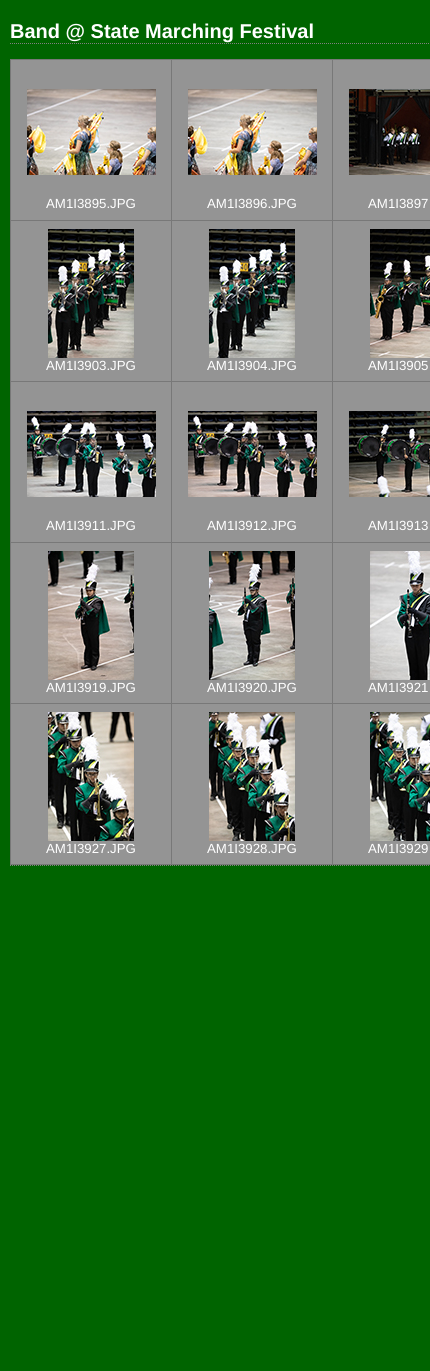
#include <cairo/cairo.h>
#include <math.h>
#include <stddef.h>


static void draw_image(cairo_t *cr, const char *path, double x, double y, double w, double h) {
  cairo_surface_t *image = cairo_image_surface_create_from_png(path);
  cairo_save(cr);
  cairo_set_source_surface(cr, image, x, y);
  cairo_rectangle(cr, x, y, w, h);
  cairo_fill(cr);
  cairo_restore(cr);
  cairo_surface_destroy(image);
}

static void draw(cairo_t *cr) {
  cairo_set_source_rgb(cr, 0, 100 / 255.0, 0);
  cairo_paint(cr);
  cairo_new_path(cr);
  cairo_move_to(cr, 10, 43.5);
  cairo_line_to(cr, 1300, 43.5);
  cairo_set_source_rgb(cr, 127 / 255.0, 127 / 255.0, 127 / 255.0);
  cairo_set_line_width(cr, 1);
  cairo_set_dash(cr, (double[]){1, 1}, 2, 0);
  cairo_stroke(cr);
  cairo_set_source_rgb(cr, 148 / 255.0, 148 / 255.0, 148 / 255.0);
  cairo_rectangle(cr, 11, 60, 160, 160);
  cairo_fill(cr);
  cairo_set_source_rgb(cr, 120 / 255.0, 120 / 255.0, 120 / 255.0);
  cairo_rectangle(cr, 10, 59, 420, 1);
  cairo_fill(cr);
  cairo_rectangle(cr, 10, 59, 1, 161);
  cairo_fill(cr);
  draw_image(cr, "images/1.png", 27, 89, 129, 86);
  cairo_set_source_rgb(cr, 148 / 255.0, 148 / 255.0, 148 / 255.0);
  cairo_rectangle(cr, 172, 60, 160, 160);
  cairo_fill(cr);
  cairo_set_source_rgb(cr, 120 / 255.0, 120 / 255.0, 120 / 255.0);
  cairo_rectangle(cr, 171, 59, 1, 161);
  cairo_fill(cr);
  draw_image(cr, "images/2.png", 188, 89, 129, 86);
  cairo_set_source_rgb(cr, 148 / 255.0, 148 / 255.0, 148 / 255.0);
  cairo_rectangle(cr, 333, 60, 97, 160);
  cairo_fill(cr);
  cairo_set_source_rgb(cr, 120 / 255.0, 120 / 255.0, 120 / 255.0);
  cairo_rectangle(cr, 332, 59, 1, 161);
  cairo_fill(cr);
  draw_image(cr, "images/3.png", 349, 89, 81, 86);
  cairo_set_source_rgb(cr, 148 / 255.0, 148 / 255.0, 148 / 255.0);
  cairo_rectangle(cr, 11, 221, 160, 160);
  cairo_fill(cr);
  cairo_set_source_rgb(cr, 120 / 255.0, 120 / 255.0, 120 / 255.0);
  cairo_rectangle(cr, 10, 220, 420, 1);
  cairo_fill(cr);
  cairo_rectangle(cr, 10, 220, 1, 161);
  cairo_fill(cr);
  draw_image(cr, "images/4.png", 48, 229, 86, 129);
  cairo_set_source_rgb(cr, 148 / 255.0, 148 / 255.0, 148 / 255.0);
  cairo_rectangle(cr, 172, 221, 160, 160);
  cairo_fill(cr);
  cairo_set_source_rgb(cr, 120 / 255.0, 120 / 255.0, 120 / 255.0);
  cairo_rectangle(cr, 171, 220, 1, 161);
  cairo_fill(cr);
  draw_image(cr, "images/5.png", 209, 229, 86, 129);
  cairo_set_source_rgb(cr, 148 / 255.0, 148 / 255.0, 148 / 255.0);
  cairo_rectangle(cr, 333, 221, 97, 160);
  cairo_fill(cr);
  cairo_set_source_rgb(cr, 120 / 255.0, 120 / 255.0, 120 / 255.0);
  cairo_rectangle(cr, 332, 220, 1, 161);
  cairo_fill(cr);
  draw_image(cr, "images/6.png", 370, 229, 60, 129);
  cairo_set_source_rgb(cr, 148 / 255.0, 148 / 255.0, 148 / 255.0);
  cairo_rectangle(cr, 11, 382, 160, 160);
  cairo_fill(cr);
  cairo_set_source_rgb(cr, 120 / 255.0, 120 / 255.0, 120 / 255.0);
  cairo_rectangle(cr, 10, 381, 420, 1);
  cairo_fill(cr);
  cairo_rectangle(cr, 10, 381, 1, 161);
  cairo_fill(cr);
  draw_image(cr, "images/7.png", 27, 411, 129, 86);
  cairo_set_source_rgb(cr, 148 / 255.0, 148 / 255.0, 148 / 255.0);
  cairo_rectangle(cr, 172, 382, 160, 160);
  cairo_fill(cr);
  cairo_set_source_rgb(cr, 120 / 255.0, 120 / 255.0, 120 / 255.0);
  cairo_rectangle(cr, 171, 381, 1, 161);
  cairo_fill(cr);
  draw_image(cr, "images/8.png", 188, 411, 129, 86);
  cairo_set_source_rgb(cr, 148 / 255.0, 148 / 255.0, 148 / 255.0);
  cairo_rectangle(cr, 333, 382, 97, 160);
  cairo_fill(cr);
  cairo_set_source_rgb(cr, 120 / 255.0, 120 / 255.0, 120 / 255.0);
  cairo_rectangle(cr, 332, 381, 1, 161);
  cairo_fill(cr);
  draw_image(cr, "images/9.png", 349, 411, 81, 86);
  cairo_set_source_rgb(cr, 148 / 255.0, 148 / 255.0, 148 / 255.0);
  cairo_rectangle(cr, 11, 543, 160, 160);
  cairo_fill(cr);
  cairo_set_source_rgb(cr, 120 / 255.0, 120 / 255.0, 120 / 255.0);
  cairo_rectangle(cr, 10, 542, 420, 1);
  cairo_fill(cr);
  cairo_rectangle(cr, 10, 542, 1, 161);
  cairo_fill(cr);
  draw_image(cr, "images/10.png", 48, 551, 86, 129);
  cairo_set_source_rgb(cr, 148 / 255.0, 148 / 255.0, 148 / 255.0);
  cairo_rectangle(cr, 172, 543, 160, 160);
  cairo_fill(cr);
  cairo_set_source_rgb(cr, 120 / 255.0, 120 / 255.0, 120 / 255.0);
  cairo_rectangle(cr, 171, 542, 1, 161);
  cairo_fill(cr);
  draw_image(cr, "images/11.png", 209, 551, 86, 129);
  cairo_set_source_rgb(cr, 148 / 255.0, 148 / 255.0, 148 / 255.0);
  cairo_rectangle(cr, 333, 543, 97, 160);
  cairo_fill(cr);
  cairo_set_source_rgb(cr, 120 / 255.0, 120 / 255.0, 120 / 255.0);
  cairo_rectangle(cr, 332, 542, 1, 161);
  cairo_fill(cr);
  draw_image(cr, "images/12.png", 370, 551, 60, 129);
  cairo_set_source_rgb(cr, 148 / 255.0, 148 / 255.0, 148 / 255.0);
  cairo_rectangle(cr, 11, 704, 160, 160);
  cairo_fill(cr);
  cairo_set_source_rgb(cr, 120 / 255.0, 120 / 255.0, 120 / 255.0);
  cairo_rectangle(cr, 10, 703, 420, 1);
  cairo_fill(cr);
  cairo_rectangle(cr, 10, 864, 420, 1);
  cairo_fill(cr);
  cairo_rectangle(cr, 10, 703, 1, 162);
  cairo_fill(cr);
  draw_image(cr, "images/13.png", 48, 712, 86, 129);
  cairo_set_source_rgb(cr, 148 / 255.0, 148 / 255.0, 148 / 255.0);
  cairo_rectangle(cr, 172, 704, 160, 160);
  cairo_fill(cr);
  cairo_set_source_rgb(cr, 120 / 255.0, 120 / 255.0, 120 / 255.0);
  cairo_rectangle(cr, 171, 703, 1, 162);
  cairo_fill(cr);
  draw_image(cr, "images/14.png", 209, 712, 86, 129);
  cairo_set_source_rgb(cr, 148 / 255.0, 148 / 255.0, 148 / 255.0);
  cairo_rectangle(cr, 333, 704, 97, 160);
  cairo_fill(cr);
  cairo_set_source_rgb(cr, 120 / 255.0, 120 / 255.0, 120 / 255.0);
  cairo_rectangle(cr, 332, 703, 1, 162);
  cairo_fill(cr);
  draw_image(cr, "images/15.png", 370, 712, 60, 129);
  cairo_new_path(cr);
  cairo_move_to(cr, 10, 865.5);
  cairo_line_to(cr, 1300, 865.5);
  cairo_set_source_rgb(cr, 127 / 255.0, 127 / 255.0, 127 / 255.0);
  cairo_stroke(cr);
  cairo_select_font_face(cr, "Liberation Sans", CAIRO_FONT_SLANT_NORMAL, CAIRO_FONT_WEIGHT_BOLD);
  cairo_set_font_size(cr, 20);
  cairo_set_source_rgb(cr, 1, 1, 1);
  cairo_move_to(cr, 10, 38);
  cairo_show_text(cr, "Band @ State Marching Festival");
  cairo_select_font_face(cr, "Liberation Sans", CAIRO_FONT_SLANT_NORMAL, CAIRO_FONT_WEIGHT_NORMAL);
  cairo_set_font_size(cr, 13.25);
  cairo_move_to(cr, 46, 208);
  cairo_show_text(cr, "AM1I3895.JPG");
  cairo_move_to(cr, 207, 208);
  cairo_show_text(cr, "AM1I3896.JPG");
  cairo_move_to(cr, 368, 208);
  cairo_show_text(cr, "AM1I3897");
  cairo_move_to(cr, 46, 370);
  cairo_show_text(cr, "AM1I3903.JPG");
  cairo_move_to(cr, 207, 370);
  cairo_show_text(cr, "AM1I3904.JPG");
  cairo_move_to(cr, 368, 370);
  cairo_show_text(cr, "AM1I3905");
  cairo_move_to(cr, 46, 530);
  cairo_show_text(cr, "AM1I3911.JPG");
  cairo_move_to(cr, 207, 530);
  cairo_show_text(cr, "AM1I3912.JPG");
  cairo_move_to(cr, 368, 530);
  cairo_show_text(cr, "AM1I3913");
  cairo_move_to(cr, 46, 692);
  cairo_show_text(cr, "AM1I3919.JPG");
  cairo_move_to(cr, 207, 692);
  cairo_show_text(cr, "AM1I3920.JPG");
  cairo_move_to(cr, 368, 692);
  cairo_show_text(cr, "AM1I3921");
  cairo_move_to(cr, 46, 853);
  cairo_show_text(cr, "AM1I3927.JPG");
  cairo_move_to(cr, 207, 853);
  cairo_show_text(cr, "AM1I3928.JPG");
  cairo_move_to(cr, 368, 853);
  cairo_show_text(cr, "AM1I3929");
}

int main(void) {
  cairo_surface_t *surface = cairo_image_surface_create(CAIRO_FORMAT_RGB24, 430, 1371);
  cairo_t *cr = cairo_create(surface);
  cairo_font_options_t *options = cairo_font_options_create();
  cairo_font_options_set_hint_metrics(options, CAIRO_HINT_METRICS_OFF);
  cairo_font_options_set_hint_style(options, CAIRO_HINT_STYLE_NONE);
  cairo_set_font_options(cr, options);
  cairo_set_miter_limit(cr, 4);
  draw(cr);
  cairo_surface_write_to_png(surface, "out.png");
  cairo_font_options_destroy(options);
  cairo_destroy(cr);
  cairo_surface_destroy(surface);
  return 0;
}
